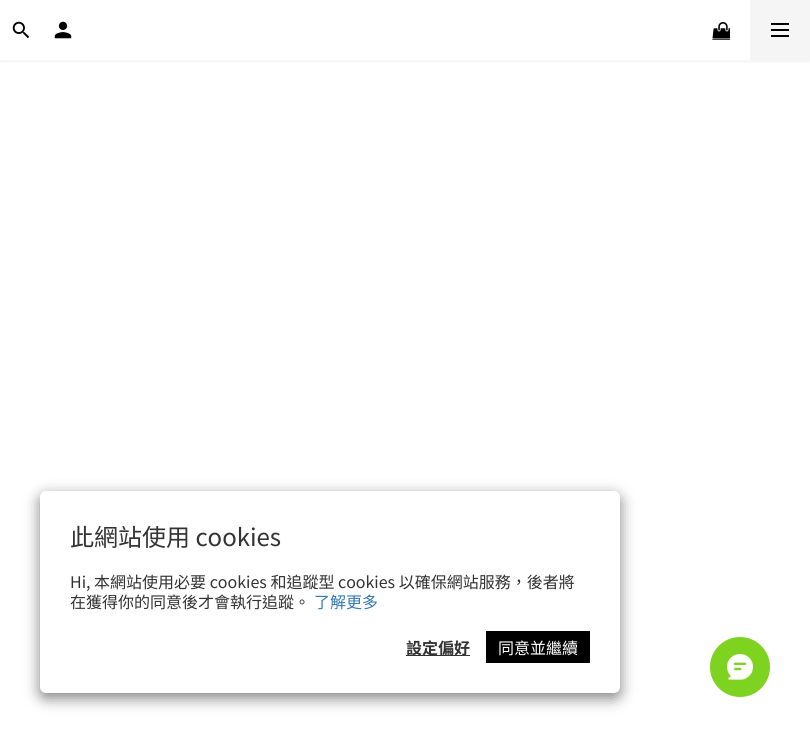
#include <cairo/cairo.h>
#include <math.h>
#include <stddef.h>


static void rounded_rect(cairo_t *cr, double x, double y, double w, double h, double r) {
  cairo_new_sub_path(cr);
  cairo_arc(cr, x + w - r, y + h - r, r, 0, M_PI / 2);
  cairo_arc(cr, x + r, y + h - r, r, M_PI / 2, M_PI);
  cairo_arc(cr, x + r, y + r, r, M_PI, 1.5 * M_PI);
  cairo_arc(cr, x + w - r, y + r, r, 1.5 * M_PI, 2 * M_PI);
  cairo_close_path(cr);
}

static void draw_shadow(cairo_t *cr, double x, double y, double w, double h, double r, double blur, double alpha) {
  cairo_push_group_with_content(cr, CAIRO_CONTENT_ALPHA);
  cairo_set_operator(cr, CAIRO_OPERATOR_SOURCE);
  for (int i = 15; i >= -15 && fmin(w, h) + blur * i / 3 > 0; i -= 2) {
    double e = blur * i / 6;
    cairo_set_source_rgba(cr, 0, 0, 0, alpha * erfc((i - 1) / 8.5) / 2);
    rounded_rect(cr, x - e, y - e, w + 2 * e, h + 2 * e, fmax(0, fmin(r + e + blur * .6, fmin(w, h) / 2 + e)));
    cairo_fill(cr);
  }
  cairo_pattern_t *soft = cairo_pop_group(cr);
  cairo_mask(cr, soft);
  cairo_pattern_destroy(soft);
}

static void draw_image(cairo_t *cr, const char *path, double x, double y, double w, double h) {
  cairo_surface_t *image = cairo_image_surface_create_from_png(path);
  cairo_save(cr);
  cairo_set_source_surface(cr, image, x, y);
  cairo_rectangle(cr, x, y, w, h);
  cairo_fill(cr);
  cairo_restore(cr);
  cairo_surface_destroy(image);
}

static void draw(cairo_t *cr) {
  cairo_set_source_rgb(cr, 1, 1, 1);
  cairo_paint(cr);
  cairo_save(cr);
  cairo_rectangle(cr, 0, 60, 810, 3);
  cairo_clip(cr);
  cairo_set_source_rgb(cr, 0, 0, 0);
  draw_shadow(cr, 0, 2, 810, 60, 0, 3, 0.06);
  cairo_restore(cr);
  draw_image(cr, "images/1.png", 12, 21, 18, 18);
  draw_image(cr, "images/2.png", 54, 21, 18, 18);
  draw_image(cr, "images/3.png", 712, 22, 18, 18);
  cairo_set_source_rgb(cr, 245 / 255.0, 245 / 255.0, 245 / 255.0);
  cairo_rectangle(cr, 750, 0, 60, 60);
  cairo_fill(cr);
  cairo_set_source_rgb(cr, 0, 0, 0);
  cairo_rectangle(cr, 771, 29, 18, 2);
  cairo_fill(cr);
  cairo_rectangle(cr, 771, 23, 18, 2);
  cairo_fill(cr);
  cairo_rectangle(cr, 771, 35, 18, 2);
  cairo_fill(cr);
  cairo_set_source_rgb(cr, 0, 0, 0);
  draw_shadow(cr, 40, 496, 580, 202, 6, 7.5, 0.5);
  cairo_set_source_rgb(cr, 1, 1, 1);
  rounded_rect(cr, 40, 491, 580, 202, 6);
  cairo_fill(cr);
  cairo_set_source_rgb(cr, 51 / 255.0, 51 / 255.0, 51 / 255.0);
  cairo_rectangle(cr, 406, 655, 64, 1);
  cairo_fill(cr);
  cairo_set_source_rgb(cr, 0, 0, 0);
  cairo_rectangle(cr, 486, 631, 104, 32);
  cairo_fill(cr);
  cairo_set_source_rgb(cr, 126 / 255.0, 211 / 255.0, 33 / 255.0);
  cairo_arc(cr, 740, 667, 30, 0, 2 * M_PI);
  cairo_fill(cr);
  draw_image(cr, "images/4.png", 727, 654, 26, 26);
  cairo_select_font_face(cr, "Noto Sans TC", CAIRO_FONT_SLANT_NORMAL, CAIRO_FONT_WEIGHT_NORMAL);
  cairo_set_font_size(cr, 24);
  cairo_set_source_rgb(cr, 51 / 255.0, 51 / 255.0, 51 / 255.0);
  cairo_move_to(cr, 70, 546);
  cairo_show_text(cr, "此網站使用 cookies");
  cairo_set_font_size(cr, 16);
  cairo_move_to(cr, 70, 588);
  cairo_show_text(cr, "Hi, 本網站使用必要 cookies 和追蹤型 cookies 以確保網站服務，後者將");
  cairo_move_to(cr, 70, 608);
  cairo_show_text(cr, "在獲得你的同意後才會執行追蹤。");
  cairo_set_source_rgb(cr, 51 / 255.0, 122 / 255.0, 183 / 255.0);
  cairo_move_to(cr, 314, 608);
  cairo_show_text(cr, "了解更多");
  cairo_select_font_face(cr, "Noto Sans TC", CAIRO_FONT_SLANT_NORMAL, CAIRO_FONT_WEIGHT_BOLD);
  cairo_set_source_rgb(cr, 51 / 255.0, 51 / 255.0, 51 / 255.0);
  cairo_move_to(cr, 406, 654);
  cairo_show_text(cr, "設定偏好");
  cairo_select_font_face(cr, "Noto Sans TC", CAIRO_FONT_SLANT_NORMAL, CAIRO_FONT_WEIGHT_NORMAL);
  cairo_set_source_rgb(cr, 1, 1, 1);
  cairo_move_to(cr, 498, 654);
  cairo_show_text(cr, "同意並繼續");
}

int main(void) {
  cairo_surface_t *surface = cairo_image_surface_create(CAIRO_FORMAT_RGB24, 810, 753);
  cairo_t *cr = cairo_create(surface);
  cairo_font_options_t *options = cairo_font_options_create();
  cairo_font_options_set_hint_metrics(options, CAIRO_HINT_METRICS_OFF);
  cairo_font_options_set_hint_style(options, CAIRO_HINT_STYLE_NONE);
  cairo_set_font_options(cr, options);
  cairo_set_miter_limit(cr, 4);
  draw(cr);
  cairo_surface_write_to_png(surface, "out.png");
  cairo_font_options_destroy(options);
  cairo_destroy(cr);
  cairo_surface_destroy(surface);
  return 0;
}
